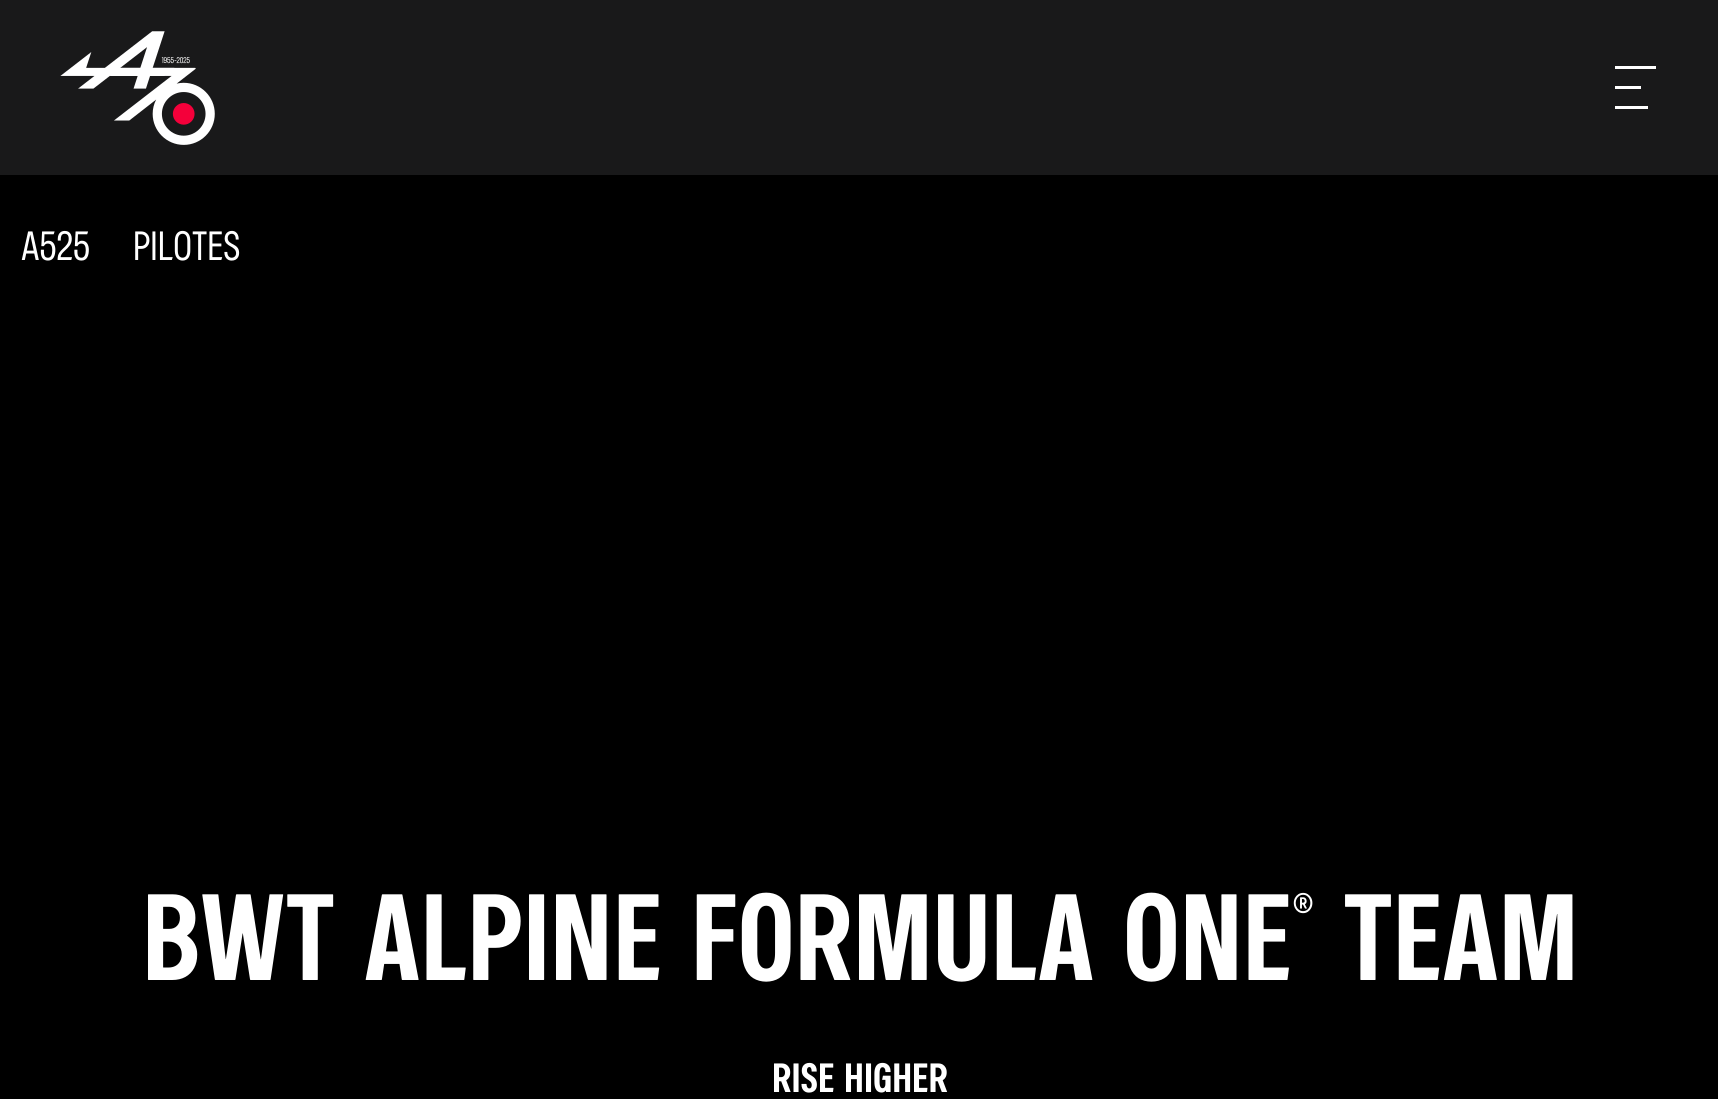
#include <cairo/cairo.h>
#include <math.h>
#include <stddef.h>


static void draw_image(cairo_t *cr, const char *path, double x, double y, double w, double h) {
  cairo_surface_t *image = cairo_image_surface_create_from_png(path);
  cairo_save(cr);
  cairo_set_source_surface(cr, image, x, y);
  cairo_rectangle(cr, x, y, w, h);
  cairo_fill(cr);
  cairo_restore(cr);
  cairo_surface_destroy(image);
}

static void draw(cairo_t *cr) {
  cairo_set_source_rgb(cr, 25 / 255.0, 25 / 255.0, 26 / 255.0);
  cairo_paint(cr);
  draw_image(cr, "images/1.png", 60, 31, 155, 114);
  cairo_set_source_rgb(cr, 1, 1, 1);
  cairo_new_path(cr);
  cairo_move_to(cr, 1656, 66);
  cairo_line_to(cr, 1656, 69);
  cairo_line_to(cr, 1615, 69);
  cairo_line_to(cr, 1615, 66);
  cairo_close_path(cr);
  cairo_move_to(cr, 1641, 86);
  cairo_line_to(cr, 1615, 86);
  cairo_line_to(cr, 1615, 89);
  cairo_line_to(cr, 1641, 89);
  cairo_close_path(cr);
  cairo_move_to(cr, 1615, 109);
  cairo_line_to(cr, 1648, 109);
  cairo_line_to(cr, 1648, 106);
  cairo_line_to(cr, 1615, 106);
  cairo_close_path(cr);
  cairo_fill(cr);
  cairo_set_source_rgb(cr, 0, 0, 0);
  cairo_rectangle(cr, 0, 175, 1718, 924);
  cairo_fill(cr);
  cairo_select_font_face(cr, "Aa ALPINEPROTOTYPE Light", CAIRO_FONT_SLANT_NORMAL, CAIRO_FONT_WEIGHT_NORMAL);
  cairo_set_font_size(cr, 40);
  cairo_set_source_rgb(cr, 1, 1, 1);
  cairo_move_to(cr, 21, 260);
  cairo_show_text(cr, "A525");
  cairo_move_to(cr, 133, 260);
  cairo_show_text(cr, "PILOTES");
  cairo_select_font_face(cr, "Aa ALPINEPROTOTYPE", CAIRO_FONT_SLANT_NORMAL, CAIRO_FONT_WEIGHT_BOLD);
  cairo_set_font_size(cr, 120);
  cairo_move_to(cr, 142, 980);
  cairo_show_text(cr, "BWT ALPINE FORMULA ONE® TEAM");
  cairo_set_font_size(cr, 40);
  cairo_move_to(cr, 772, 1092);
  cairo_show_text(cr, "RISE HIGHER");
}

int main(void) {
  cairo_surface_t *surface = cairo_image_surface_create(CAIRO_FORMAT_RGB24, 1718, 1099);
  cairo_t *cr = cairo_create(surface);
  cairo_font_options_t *options = cairo_font_options_create();
  cairo_font_options_set_hint_metrics(options, CAIRO_HINT_METRICS_OFF);
  cairo_font_options_set_hint_style(options, CAIRO_HINT_STYLE_NONE);
  cairo_set_font_options(cr, options);
  cairo_set_miter_limit(cr, 4);
  draw(cr);
  cairo_surface_write_to_png(surface, "out.png");
  cairo_font_options_destroy(options);
  cairo_destroy(cr);
  cairo_surface_destroy(surface);
  return 0;
}
